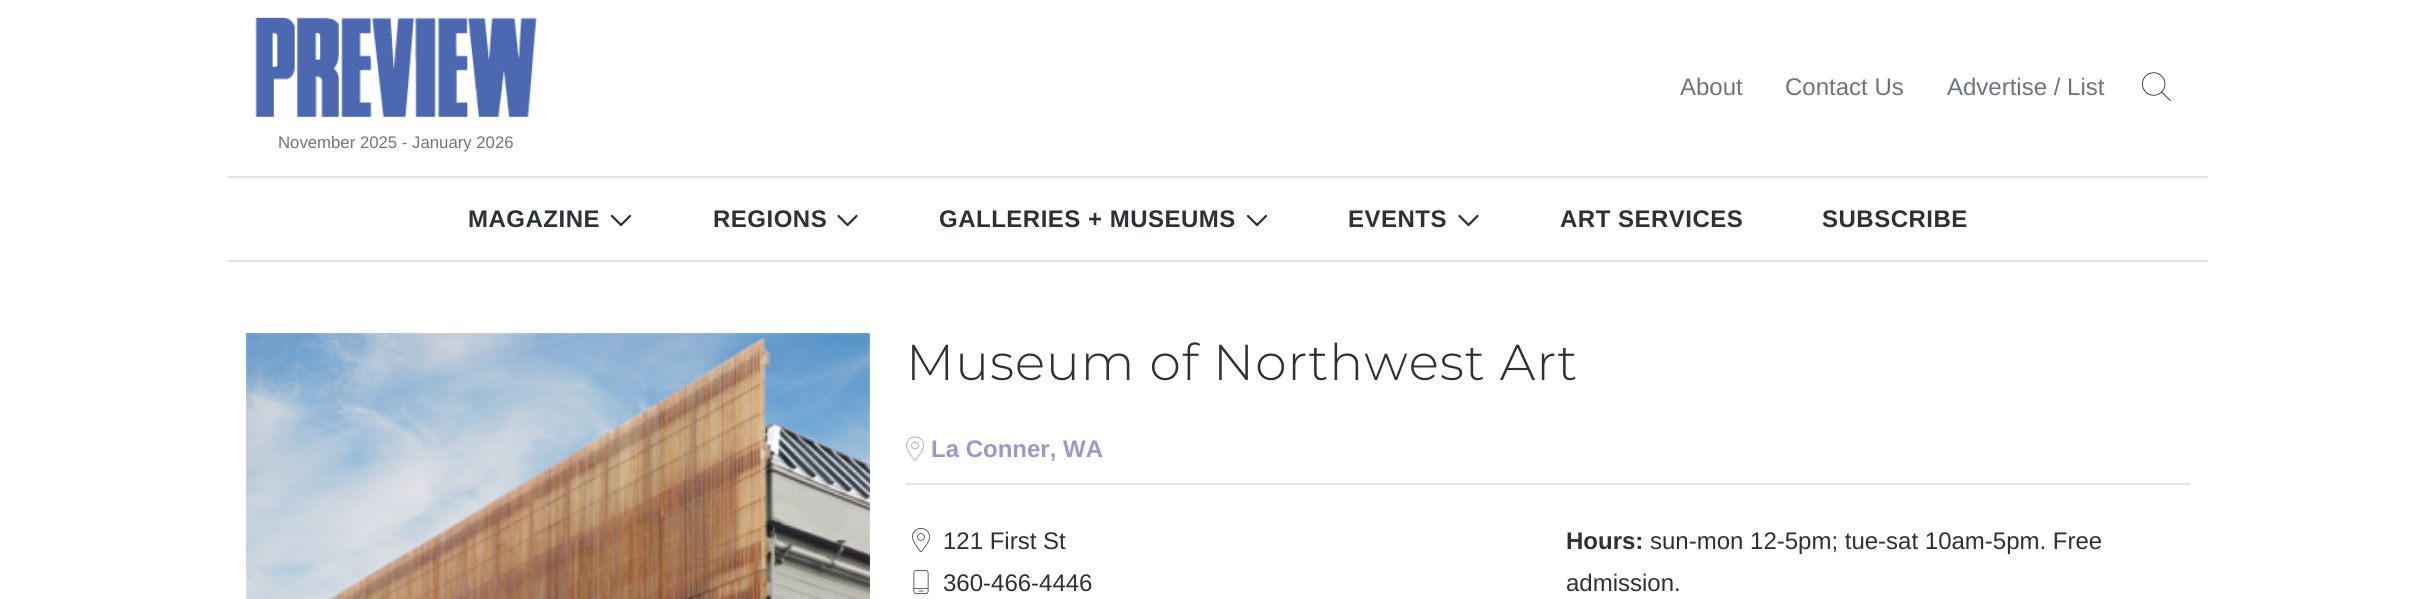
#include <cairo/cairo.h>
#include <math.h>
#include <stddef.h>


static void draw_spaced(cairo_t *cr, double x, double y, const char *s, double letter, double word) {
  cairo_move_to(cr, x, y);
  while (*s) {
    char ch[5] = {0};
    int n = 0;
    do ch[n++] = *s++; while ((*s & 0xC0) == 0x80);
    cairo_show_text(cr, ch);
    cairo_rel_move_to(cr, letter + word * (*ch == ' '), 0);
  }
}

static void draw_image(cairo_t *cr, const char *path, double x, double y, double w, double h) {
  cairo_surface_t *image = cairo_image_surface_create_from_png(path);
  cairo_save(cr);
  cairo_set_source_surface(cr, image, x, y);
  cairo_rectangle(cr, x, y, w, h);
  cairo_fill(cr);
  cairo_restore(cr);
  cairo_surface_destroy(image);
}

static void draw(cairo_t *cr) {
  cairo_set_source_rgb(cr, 1, 1, 1);
  cairo_paint(cr);
  draw_image(cr, "images/1.png", 2142, 72, 29, 30);
  draw_image(cr, "images/2.png", 255, 17, 282, 100);
  cairo_set_source_rgb(cr, 222 / 255.0, 226 / 255.0, 230 / 255.0);
  cairo_rectangle(cr, 228, 176, 1980, 2);
  cairo_fill(cr);
  cairo_rectangle(cr, 228, 260, 1980, 2);
  cairo_fill(cr);
  draw_image(cr, "images/3.png", 610, 214, 22, 13);
  draw_image(cr, "images/4.png", 837, 214, 21, 13);
  draw_image(cr, "images/3.png", 1246, 214, 22, 13);
  draw_image(cr, "images/4.png", 1458, 214, 21, 13);
  draw_image(cr, "images/5.png", 246, 333, 624, 266);
  cairo_rectangle(cr, 906, 483, 1284, 2);
  cairo_fill(cr);
  draw_image(cr, "images/6.png", 906, 436, 18, 25);
  draw_image(cr, "images/7.png", 912, 528, 18, 24);
  draw_image(cr, "images/8.png", 913, 570, 16, 24);
  cairo_select_font_face(cr, "Liberation Sans", CAIRO_FONT_SLANT_NORMAL, CAIRO_FONT_WEIGHT_NORMAL);
  cairo_set_font_size(cr, 24);
  cairo_set_source_rgb(cr, 108 / 255.0, 117 / 255.0, 125 / 255.0);
  cairo_move_to(cr, 1680, 95);
  cairo_show_text(cr, "About");
  cairo_move_to(cr, 1785, 95);
  cairo_show_text(cr, "Contact Us");
  cairo_move_to(cr, 1947, 95);
  cairo_show_text(cr, "Advertise / List");
  cairo_set_font_size(cr, 16.75);
  cairo_move_to(cr, 278, 148);
  cairo_show_text(cr, "November 2025 - January 2026");
  cairo_select_font_face(cr, "Liberation Sans", CAIRO_FONT_SLANT_NORMAL, CAIRO_FONT_WEIGHT_BOLD);
  cairo_set_font_size(cr, 24);
  cairo_set_source_rgb(cr, 44 / 255.0, 49 / 255.0, 53 / 255.0);
  draw_spaced(cr, 468, 227, "MAGAZINE", 0.5, 0);
  draw_spaced(cr, 713, 227, "REGIONS", 0.5, 0);
  draw_spaced(cr, 939, 227, "GALLERIES + MUSEUMS", 0.5, 0);
  draw_spaced(cr, 1348, 227, "EVENTS", 0.5, 0);
  draw_spaced(cr, 1560, 227, "ART SERVICES", 0.5, 0);
  draw_spaced(cr, 1822, 227, "SUBSCRIBE", 0.5, 0);
  cairo_select_font_face(cr, "Montserrat Light", CAIRO_FONT_SLANT_NORMAL, CAIRO_FONT_WEIGHT_NORMAL);
  cairo_set_font_size(cr, 50.4);
  draw_spaced(cr, 906, 380, "Museum of Northwest Art", 1, 0);
  cairo_select_font_face(cr, "Liberation Sans", CAIRO_FONT_SLANT_NORMAL, CAIRO_FONT_WEIGHT_BOLD);
  cairo_set_font_size(cr, 24);
  cairo_set_source_rgb(cr, 163 / 255.0, 149 / 255.0, 197 / 255.0);
  cairo_move_to(cr, 931, 457);
  cairo_show_text(cr, "La Conner, WA");
  cairo_select_font_face(cr, "Liberation Sans", CAIRO_FONT_SLANT_NORMAL, CAIRO_FONT_WEIGHT_NORMAL);
  cairo_set_source_rgb(cr, 44 / 255.0, 49 / 255.0, 53 / 255.0);
  cairo_move_to(cr, 943, 549);
  cairo_show_text(cr, "121 First St");
  cairo_move_to(cr, 943, 591);
  cairo_show_text(cr, "360-466-4446");
  cairo_select_font_face(cr, "Liberation Sans", CAIRO_FONT_SLANT_NORMAL, CAIRO_FONT_WEIGHT_BOLD);
  cairo_move_to(cr, 1566, 549);
  cairo_show_text(cr, "Hours:");
  cairo_select_font_face(cr, "Liberation Sans", CAIRO_FONT_SLANT_NORMAL, CAIRO_FONT_WEIGHT_NORMAL);
  cairo_move_to(cr, 1650, 549);
  cairo_show_text(cr, "sun-mon 12-5pm; tue-sat 10am-5pm. Free");
  cairo_move_to(cr, 1566, 591);
  cairo_show_text(cr, "admission.");
}

int main(void) {
  cairo_surface_t *surface = cairo_image_surface_create(CAIRO_FORMAT_RGB24, 2435, 599);
  cairo_t *cr = cairo_create(surface);
  cairo_font_options_t *options = cairo_font_options_create();
  cairo_font_options_set_hint_metrics(options, CAIRO_HINT_METRICS_OFF);
  cairo_font_options_set_hint_style(options, CAIRO_HINT_STYLE_NONE);
  cairo_set_font_options(cr, options);
  cairo_set_miter_limit(cr, 4);
  draw(cr);
  cairo_surface_write_to_png(surface, "out.png");
  cairo_font_options_destroy(options);
  cairo_destroy(cr);
  cairo_surface_destroy(surface);
  return 0;
}
